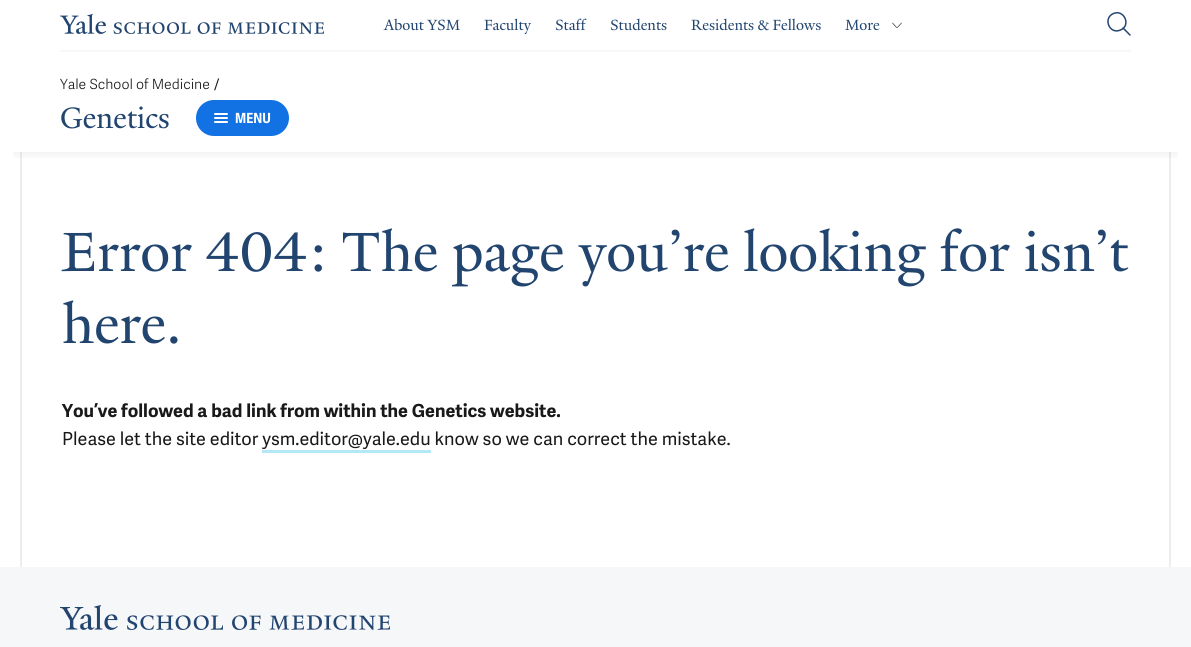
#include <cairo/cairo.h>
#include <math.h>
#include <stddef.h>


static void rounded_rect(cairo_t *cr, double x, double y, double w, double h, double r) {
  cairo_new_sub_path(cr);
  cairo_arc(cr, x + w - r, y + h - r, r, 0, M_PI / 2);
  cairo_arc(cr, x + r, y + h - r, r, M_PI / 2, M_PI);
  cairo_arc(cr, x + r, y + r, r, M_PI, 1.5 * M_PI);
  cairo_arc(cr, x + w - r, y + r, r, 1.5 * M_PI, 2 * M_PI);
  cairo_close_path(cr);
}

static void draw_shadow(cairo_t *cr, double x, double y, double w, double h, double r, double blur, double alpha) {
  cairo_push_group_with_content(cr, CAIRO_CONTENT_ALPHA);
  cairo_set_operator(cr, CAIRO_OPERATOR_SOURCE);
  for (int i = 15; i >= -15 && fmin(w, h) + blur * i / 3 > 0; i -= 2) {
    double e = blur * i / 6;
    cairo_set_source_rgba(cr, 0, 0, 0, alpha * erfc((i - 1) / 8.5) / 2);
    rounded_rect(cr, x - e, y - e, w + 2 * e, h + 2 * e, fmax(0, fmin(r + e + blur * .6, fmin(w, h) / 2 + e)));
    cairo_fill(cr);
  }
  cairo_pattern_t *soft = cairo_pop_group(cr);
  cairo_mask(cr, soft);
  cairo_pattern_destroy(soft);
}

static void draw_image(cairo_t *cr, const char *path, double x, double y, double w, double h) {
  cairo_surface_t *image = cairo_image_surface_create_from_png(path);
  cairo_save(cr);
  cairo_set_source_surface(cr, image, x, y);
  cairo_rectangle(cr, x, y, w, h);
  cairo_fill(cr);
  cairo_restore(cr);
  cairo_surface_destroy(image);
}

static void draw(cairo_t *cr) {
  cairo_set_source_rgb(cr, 1, 1, 1);
  cairo_paint(cr);
  cairo_set_source_rgb(cr, 235 / 255.0, 237 / 255.0, 240 / 255.0);
  cairo_rectangle(cr, 1169, 152, 2, 415);
  cairo_fill(cr);
  cairo_rectangle(cr, 20, 152, 2, 415);
  cairo_fill(cr);
  cairo_save(cr);
  cairo_rectangle(cr, 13, 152, 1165, 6);
  cairo_clip(cr);
  cairo_set_source_rgb(cr, 25 / 255.0, 25 / 255.0, 25 / 255.0);
  draw_shadow(cr, 14, 28, 1163, 124, 0, 7, 0.1);
  cairo_restore(cr);
  cairo_set_source_rgb(cr, 246 / 255.0, 247 / 255.0, 249 / 255.0);
  cairo_rectangle(cr, 60, 50, 1071, 2);
  cairo_fill(cr);
  draw_image(cr, "images/1.png", 60, 14, 264, 20);
  cairo_new_path(cr);
  cairo_move_to(cr, 901.5, 23);
  cairo_curve_to(cr, 895.5, 29, 898.5, 29, 892.5, 23);
  cairo_set_source_rgb(cr, 25 / 255.0, 25 / 255.0, 25 / 255.0);
  cairo_set_line_width(cr, 0.6);
  cairo_set_line_cap(cr, CAIRO_LINE_CAP_ROUND);
  cairo_set_line_join(cr, CAIRO_LINE_JOIN_ROUND);
  cairo_stroke(cr);
  cairo_new_path(cr);
  cairo_move_to(cr, 1113.5, 13.5);
  cairo_curve_to(cr, 1124, 9, 1131.5, 25.5, 1120.5, 30);
  cairo_curve_to(cr, 1109.5, 35, 1102.5, 18, 1113.5, 13.5);
  cairo_close_path(cr);
  cairo_move_to(cr, 1123, 28);
  cairo_line_to(cr, 1130, 35);
  cairo_set_source_rgb(cr, 34 / 255.0, 69 / 255.0, 112 / 255.0);
  cairo_set_line_width(cr, 1.5);
  cairo_stroke(cr);
  cairo_set_source_rgb(cr, 18 / 255.0, 113 / 255.0, 227 / 255.0);
  rounded_rect(cr, 196, 100, 93, 36, 18);
  cairo_fill(cr);
  cairo_set_source_rgb(cr, 1, 1, 1);
  rounded_rect(cr, 214, 113, 14, 2, 1);
  cairo_fill(cr);
  rounded_rect(cr, 214, 117, 14, 2, 1);
  cairo_fill(cr);
  rounded_rect(cr, 214, 121, 14, 2, 1);
  cairo_fill(cr);
  cairo_set_source_rgb(cr, 180 / 255.0, 231 / 255.0, 248 / 255.0);
  cairo_rectangle(cr, 262, 450, 169, 3);
  cairo_fill(cr);
  cairo_set_source_rgb(cr, 246 / 255.0, 247 / 255.0, 249 / 255.0);
  cairo_rectangle(cr, 0, 567, 1191, 80);
  cairo_fill(cr);
  draw_image(cr, "images/2.png", 60, 605, 330, 25);
  cairo_select_font_face(cr, "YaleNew", CAIRO_FONT_SLANT_NORMAL, CAIRO_FONT_WEIGHT_NORMAL);
  cairo_set_font_size(cr, 16);
  cairo_set_source_rgb(cr, 34 / 255.0, 69 / 255.0, 112 / 255.0);
  cairo_move_to(cr, 384, 30);
  cairo_show_text(cr, "About YSM");
  cairo_move_to(cr, 484, 30);
  cairo_show_text(cr, "Faculty");
  cairo_move_to(cr, 555, 30);
  cairo_show_text(cr, "Staff");
  cairo_move_to(cr, 610, 30);
  cairo_show_text(cr, "Students");
  cairo_move_to(cr, 691, 30);
  cairo_show_text(cr, "Residents & Fellows");
  cairo_move_to(cr, 845, 30);
  cairo_show_text(cr, "More");
  cairo_select_font_face(cr, "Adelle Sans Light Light", CAIRO_FONT_SLANT_NORMAL, CAIRO_FONT_WEIGHT_NORMAL);
  cairo_set_font_size(cr, 14);
  cairo_set_source_rgb(cr, 25 / 255.0, 25 / 255.0, 25 / 255.0);
  cairo_move_to(cr, 60, 89);
  cairo_show_text(cr, "Yale School of Medicine");
  cairo_select_font_face(cr, "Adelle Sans", CAIRO_FONT_SLANT_NORMAL, CAIRO_FONT_WEIGHT_NORMAL);
  cairo_move_to(cr, 214, 89);
  cairo_show_text(cr, "/");
  cairo_select_font_face(cr, "YaleNew", CAIRO_FONT_SLANT_NORMAL, CAIRO_FONT_WEIGHT_NORMAL);
  cairo_set_font_size(cr, 32);
  cairo_set_source_rgb(cr, 34 / 255.0, 69 / 255.0, 112 / 255.0);
  cairo_move_to(cr, 60, 128);
  cairo_show_text(cr, "Genetics");
  cairo_select_font_face(cr, "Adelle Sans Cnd", CAIRO_FONT_SLANT_NORMAL, CAIRO_FONT_WEIGHT_BOLD);
  cairo_set_font_size(cr, 14);
  cairo_set_source_rgb(cr, 1, 1, 1);
  cairo_move_to(cr, 235, 123);
  cairo_show_text(cr, "MENU");
  cairo_select_font_face(cr, "YaleNew", CAIRO_FONT_SLANT_NORMAL, CAIRO_FONT_WEIGHT_NORMAL);
  cairo_set_font_size(cr, 60);
  cairo_set_source_rgb(cr, 34 / 255.0, 69 / 255.0, 112 / 255.0);
  cairo_move_to(cr, 62, 271);
  cairo_show_text(cr, "Error 404: The page you’re looking for isn’t");
  cairo_move_to(cr, 62, 343);
  cairo_show_text(cr, "here.");
  cairo_select_font_face(cr, "Adelle Sans", CAIRO_FONT_SLANT_NORMAL, CAIRO_FONT_WEIGHT_BOLD);
  cairo_set_font_size(cr, 18);
  cairo_set_source_rgb(cr, 25 / 255.0, 25 / 255.0, 25 / 255.0);
  cairo_move_to(cr, 62, 417);
  cairo_show_text(cr, "You’ve followed a bad link from within the Genetics website.");
  cairo_select_font_face(cr, "Adelle Sans", CAIRO_FONT_SLANT_NORMAL, CAIRO_FONT_WEIGHT_NORMAL);
  cairo_move_to(cr, 62, 445);
  cairo_show_text(cr, "Please let the site editor ysm.editor@yale.edu know so we can correct the mistake.");
}

int main(void) {
  cairo_surface_t *surface = cairo_image_surface_create(CAIRO_FORMAT_RGB24, 1191, 647);
  cairo_t *cr = cairo_create(surface);
  cairo_font_options_t *options = cairo_font_options_create();
  cairo_font_options_set_hint_metrics(options, CAIRO_HINT_METRICS_OFF);
  cairo_font_options_set_hint_style(options, CAIRO_HINT_STYLE_NONE);
  cairo_set_font_options(cr, options);
  cairo_set_miter_limit(cr, 4);
  draw(cr);
  cairo_surface_write_to_png(surface, "out.png");
  cairo_font_options_destroy(options);
  cairo_destroy(cr);
  cairo_surface_destroy(surface);
  return 0;
}
